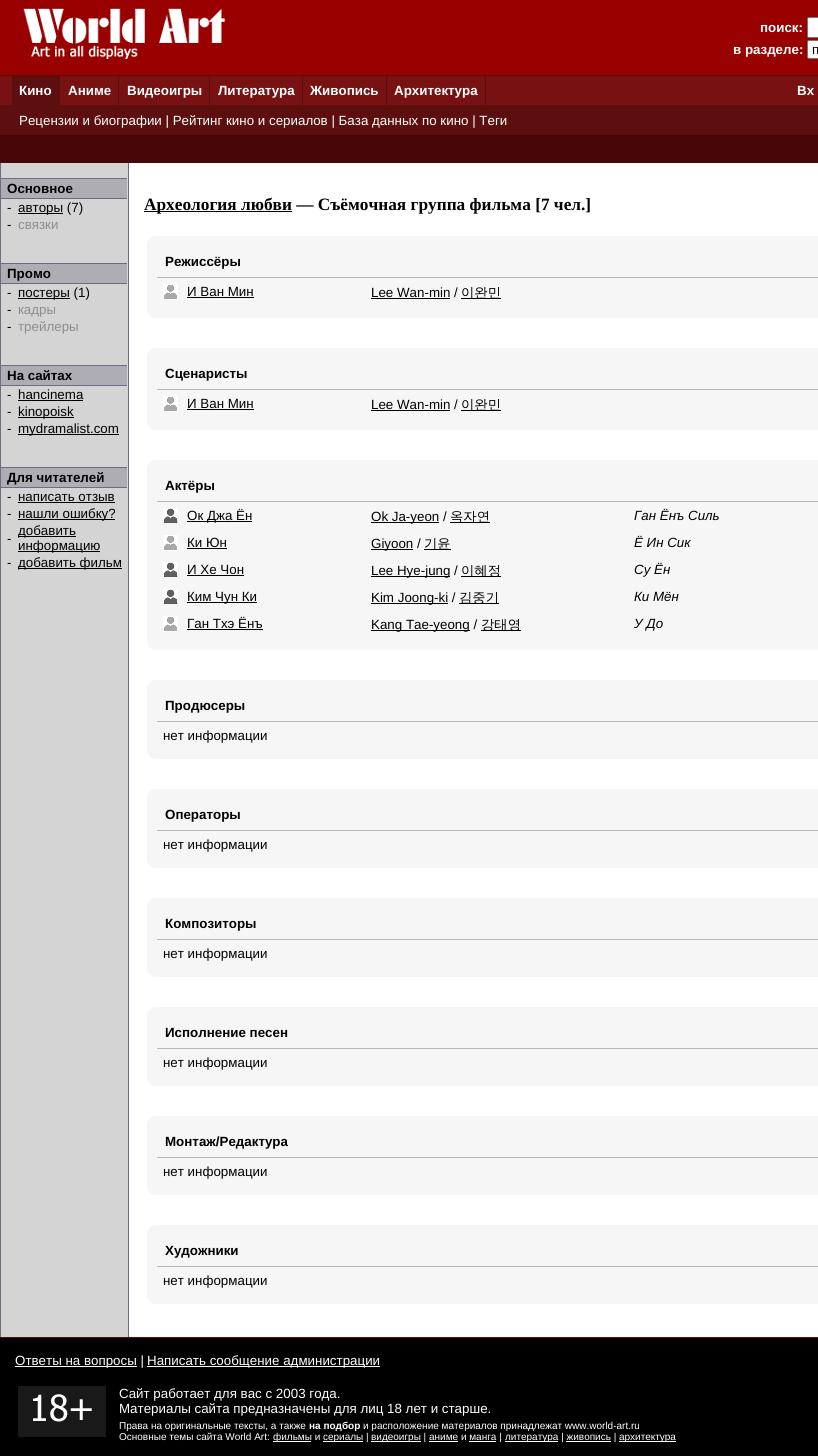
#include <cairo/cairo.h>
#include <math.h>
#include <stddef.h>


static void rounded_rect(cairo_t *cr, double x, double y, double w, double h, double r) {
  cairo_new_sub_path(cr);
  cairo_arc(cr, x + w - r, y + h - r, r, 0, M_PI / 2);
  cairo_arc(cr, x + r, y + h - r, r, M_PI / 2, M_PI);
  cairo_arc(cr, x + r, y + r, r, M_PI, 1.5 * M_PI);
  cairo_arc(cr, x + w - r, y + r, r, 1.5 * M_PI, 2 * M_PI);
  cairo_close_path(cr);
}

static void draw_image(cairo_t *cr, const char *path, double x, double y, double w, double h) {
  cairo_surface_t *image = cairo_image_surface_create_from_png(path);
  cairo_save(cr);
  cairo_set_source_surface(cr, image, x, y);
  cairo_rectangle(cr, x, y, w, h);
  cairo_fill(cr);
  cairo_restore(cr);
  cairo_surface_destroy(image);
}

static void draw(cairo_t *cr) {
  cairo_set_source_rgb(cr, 1, 1, 1);
  cairo_paint(cr);
  cairo_set_source_rgb(cr, 153 / 255.0, 0, 0);
  cairo_rectangle(cr, 0, 0, 818, 75);
  cairo_fill(cr);
  draw_image(cr, "images/1.png", 23, 8, 203, 51);
  cairo_set_source_rgb(cr, 1, 1, 1);
  rounded_rect(cr, 807.5, 17.5, 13, 20, 1.5);
  cairo_fill_preserve(cr);
  cairo_set_source_rgb(cr, 118 / 255.0, 118 / 255.0, 118 / 255.0);
  cairo_set_line_width(cr, 1);
  cairo_stroke(cr);
  cairo_set_source_rgb(cr, 1, 1, 1);
  rounded_rect(cr, 807.5, 40.5, 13, 18, 1.5);
  cairo_fill_preserve(cr);
  cairo_set_source_rgb(cr, 118 / 255.0, 118 / 255.0, 118 / 255.0);
  cairo_stroke(cr);
  cairo_set_source_rgb(cr, 93 / 255.0, 14 / 255.0, 14 / 255.0);
  cairo_rectangle(cr, 0, 75, 818, 1);
  cairo_fill(cr);
  cairo_set_source_rgb(cr, 120 / 255.0, 17 / 255.0, 17 / 255.0);
  cairo_rectangle(cr, 0, 76, 818, 29);
  cairo_fill(cr);
  cairo_set_source_rgb(cr, 93 / 255.0, 14 / 255.0, 14 / 255.0);
  cairo_rectangle(cr, 12, 76, 48, 29);
  cairo_fill(cr);
  cairo_rectangle(cr, 118, 76, 1, 29);
  cairo_fill(cr);
  cairo_rectangle(cr, 209, 76, 1, 29);
  cairo_fill(cr);
  cairo_rectangle(cr, 302, 76, 1, 29);
  cairo_fill(cr);
  cairo_rectangle(cr, 386, 76, 1, 29);
  cairo_fill(cr);
  cairo_rectangle(cr, 485, 76, 1, 29);
  cairo_fill(cr);
  cairo_rectangle(cr, 0, 105, 818, 1);
  cairo_fill(cr);
  cairo_rectangle(cr, 0, 106, 818, 29);
  cairo_fill(cr);
  cairo_set_source_rgb(cr, 68 / 255.0, 6 / 255.0, 6 / 255.0);
  cairo_rectangle(cr, 0, 135, 818, 28);
  cairo_fill(cr);
  cairo_set_source_rgb(cr, 107 / 255.0, 110 / 255.0, 126 / 255.0);
  cairo_rectangle(cr, 0, 163, 1, 1174);
  cairo_fill(cr);
  cairo_set_source_rgb(cr, 212 / 255.0, 212 / 255.0, 212 / 255.0);
  cairo_rectangle(cr, 1, 163, 127, 1174);
  cairo_fill(cr);
  cairo_set_source_rgb(cr, 107 / 255.0, 110 / 255.0, 126 / 255.0);
  cairo_rectangle(cr, 1, 178, 126, 1);
  cairo_fill(cr);
  cairo_set_source_rgb(cr, 174 / 255.0, 173 / 255.0, 180 / 255.0);
  cairo_rectangle(cr, 1, 179, 126, 19);
  cairo_fill(cr);
  cairo_set_source_rgb(cr, 107 / 255.0, 110 / 255.0, 126 / 255.0);
  cairo_rectangle(cr, 1, 198, 126, 1);
  cairo_fill(cr);
  cairo_set_source_rgb(cr, 0, 0, 0);
  cairo_rectangle(cr, 18, 213, 45, 1);
  cairo_fill(cr);
  cairo_set_source_rgb(cr, 107 / 255.0, 110 / 255.0, 126 / 255.0);
  cairo_rectangle(cr, 1, 263, 126, 1);
  cairo_fill(cr);
  cairo_set_source_rgb(cr, 174 / 255.0, 173 / 255.0, 180 / 255.0);
  cairo_rectangle(cr, 1, 264, 126, 19);
  cairo_fill(cr);
  cairo_set_source_rgb(cr, 107 / 255.0, 110 / 255.0, 126 / 255.0);
  cairo_rectangle(cr, 1, 283, 126, 1);
  cairo_fill(cr);
  cairo_set_source_rgb(cr, 0, 0, 0);
  cairo_rectangle(cr, 18, 298, 52, 1);
  cairo_fill(cr);
  cairo_set_source_rgb(cr, 107 / 255.0, 110 / 255.0, 126 / 255.0);
  cairo_rectangle(cr, 1, 365, 126, 1);
  cairo_fill(cr);
  cairo_set_source_rgb(cr, 174 / 255.0, 173 / 255.0, 180 / 255.0);
  cairo_rectangle(cr, 1, 366, 126, 19);
  cairo_fill(cr);
  cairo_set_source_rgb(cr, 107 / 255.0, 110 / 255.0, 126 / 255.0);
  cairo_rectangle(cr, 1, 385, 126, 1);
  cairo_fill(cr);
  cairo_set_source_rgb(cr, 0, 0, 0);
  cairo_rectangle(cr, 18, 400, 65, 1);
  cairo_fill(cr);
  cairo_rectangle(cr, 18, 417, 56, 1);
  cairo_fill(cr);
  cairo_rectangle(cr, 18, 434, 101, 1);
  cairo_fill(cr);
  cairo_set_source_rgb(cr, 107 / 255.0, 110 / 255.0, 126 / 255.0);
  cairo_rectangle(cr, 1, 467, 126, 1);
  cairo_fill(cr);
  cairo_set_source_rgb(cr, 174 / 255.0, 173 / 255.0, 180 / 255.0);
  cairo_rectangle(cr, 1, 468, 126, 19);
  cairo_fill(cr);
  cairo_set_source_rgb(cr, 107 / 255.0, 110 / 255.0, 126 / 255.0);
  cairo_rectangle(cr, 1, 487, 126, 1);
  cairo_fill(cr);
  cairo_set_source_rgb(cr, 0, 0, 0);
  cairo_rectangle(cr, 18, 502, 97, 1);
  cairo_fill(cr);
  cairo_rectangle(cr, 18, 519, 97, 1);
  cairo_fill(cr);
  cairo_rectangle(cr, 18, 536, 58, 1);
  cairo_fill(cr);
  cairo_rectangle(cr, 18, 551, 82, 1);
  cairo_fill(cr);
  cairo_rectangle(cr, 18, 568, 104, 1);
  cairo_fill(cr);
  cairo_set_source_rgb(cr, 107 / 255.0, 110 / 255.0, 126 / 255.0);
  cairo_rectangle(cr, 128, 163, 1, 1174);
  cairo_fill(cr);
  cairo_set_source_rgb(cr, 0, 0, 0);
  cairo_rectangle(cr, 144, 211, 148, 1);
  cairo_fill(cr);
  cairo_set_source_rgb(cr, 246 / 255.0, 246 / 255.0, 246 / 255.0);
  rounded_rect(cr, 147, 236, 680, 82, 9);
  cairo_fill(cr);
  cairo_set_source_rgb(cr, 185 / 255.0, 185 / 255.0, 185 / 255.0);
  cairo_rectangle(cr, 157, 277, 661, 1);
  cairo_fill(cr);
  draw_image(cr, "images/2.png", 163, 284, 15, 16);
  cairo_set_source_rgb(cr, 0, 0, 0);
  cairo_rectangle(cr, 187, 297, 67, 1);
  cairo_fill(cr);
  cairo_rectangle(cr, 371, 298, 79, 1);
  cairo_fill(cr);
  cairo_rectangle(cr, 461, 298, 40, 1);
  cairo_fill(cr);
  cairo_set_source_rgb(cr, 246 / 255.0, 246 / 255.0, 246 / 255.0);
  rounded_rect(cr, 147, 348, 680, 82, 9);
  cairo_fill(cr);
  cairo_set_source_rgb(cr, 185 / 255.0, 185 / 255.0, 185 / 255.0);
  cairo_rectangle(cr, 157, 389, 661, 1);
  cairo_fill(cr);
  draw_image(cr, "images/2.png", 163, 396, 15, 16);
  cairo_set_source_rgb(cr, 0, 0, 0);
  cairo_rectangle(cr, 187, 409, 67, 1);
  cairo_fill(cr);
  cairo_rectangle(cr, 371, 410, 79, 1);
  cairo_fill(cr);
  cairo_rectangle(cr, 461, 410, 40, 1);
  cairo_fill(cr);
  cairo_set_source_rgb(cr, 246 / 255.0, 246 / 255.0, 246 / 255.0);
  rounded_rect(cr, 147, 460, 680, 190, 9);
  cairo_fill(cr);
  cairo_set_source_rgb(cr, 185 / 255.0, 185 / 255.0, 185 / 255.0);
  cairo_rectangle(cr, 157, 501, 661, 1);
  cairo_fill(cr);
  draw_image(cr, "images/3.png", 163, 508, 15, 16);
  cairo_set_source_rgb(cr, 0, 0, 0);
  cairo_rectangle(cr, 187, 521, 65, 1);
  cairo_fill(cr);
  cairo_rectangle(cr, 371, 522, 68, 1);
  cairo_fill(cr);
  cairo_rectangle(cr, 450, 522, 40, 1);
  cairo_fill(cr);
  draw_image(cr, "images/2.png", 163, 535, 15, 16);
  cairo_rectangle(cr, 187, 548, 40, 1);
  cairo_fill(cr);
  cairo_rectangle(cr, 371, 549, 42, 1);
  cairo_fill(cr);
  cairo_rectangle(cr, 424, 549, 27, 1);
  cairo_fill(cr);
  draw_image(cr, "images/3.png", 163, 562, 15, 16);
  cairo_rectangle(cr, 187, 575, 57, 1);
  cairo_fill(cr);
  cairo_rectangle(cr, 371, 576, 79, 1);
  cairo_fill(cr);
  cairo_rectangle(cr, 461, 576, 40, 1);
  cairo_fill(cr);
  draw_image(cr, "images/3.png", 163, 589, 15, 16);
  cairo_rectangle(cr, 187, 602, 70, 1);
  cairo_fill(cr);
  cairo_rectangle(cr, 371, 603, 77, 1);
  cairo_fill(cr);
  cairo_rectangle(cr, 459, 603, 40, 1);
  cairo_fill(cr);
  draw_image(cr, "images/2.png", 163, 616, 15, 16);
  cairo_rectangle(cr, 187, 629, 76, 1);
  cairo_fill(cr);
  cairo_rectangle(cr, 371, 630, 99, 1);
  cairo_fill(cr);
  cairo_rectangle(cr, 481, 630, 40, 1);
  cairo_fill(cr);
  cairo_set_source_rgb(cr, 246 / 255.0, 246 / 255.0, 246 / 255.0);
  rounded_rect(cr, 147, 680, 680, 79, 9);
  cairo_fill(cr);
  cairo_set_source_rgb(cr, 185 / 255.0, 185 / 255.0, 185 / 255.0);
  cairo_rectangle(cr, 157, 721, 661, 1);
  cairo_fill(cr);
  cairo_set_source_rgb(cr, 246 / 255.0, 246 / 255.0, 246 / 255.0);
  rounded_rect(cr, 147, 789, 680, 79, 9);
  cairo_fill(cr);
  cairo_set_source_rgb(cr, 185 / 255.0, 185 / 255.0, 185 / 255.0);
  cairo_rectangle(cr, 157, 830, 661, 1);
  cairo_fill(cr);
  cairo_set_source_rgb(cr, 246 / 255.0, 246 / 255.0, 246 / 255.0);
  rounded_rect(cr, 147, 898, 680, 79, 9);
  cairo_fill(cr);
  cairo_set_source_rgb(cr, 185 / 255.0, 185 / 255.0, 185 / 255.0);
  cairo_rectangle(cr, 157, 939, 661, 1);
  cairo_fill(cr);
  cairo_set_source_rgb(cr, 246 / 255.0, 246 / 255.0, 246 / 255.0);
  rounded_rect(cr, 147, 1007, 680, 79, 9);
  cairo_fill(cr);
  cairo_set_source_rgb(cr, 185 / 255.0, 185 / 255.0, 185 / 255.0);
  cairo_rectangle(cr, 157, 1048, 661, 1);
  cairo_fill(cr);
  cairo_set_source_rgb(cr, 246 / 255.0, 246 / 255.0, 246 / 255.0);
  rounded_rect(cr, 147, 1116, 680, 79, 9);
  cairo_fill(cr);
  cairo_set_source_rgb(cr, 185 / 255.0, 185 / 255.0, 185 / 255.0);
  cairo_rectangle(cr, 157, 1157, 661, 1);
  cairo_fill(cr);
  cairo_set_source_rgb(cr, 246 / 255.0, 246 / 255.0, 246 / 255.0);
  rounded_rect(cr, 147, 1225, 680, 79, 9);
  cairo_fill(cr);
  cairo_set_source_rgb(cr, 185 / 255.0, 185 / 255.0, 185 / 255.0);
  cairo_rectangle(cr, 157, 1266, 661, 1);
  cairo_fill(cr);
  cairo_set_source_rgb(cr, 93 / 255.0, 14 / 255.0, 14 / 255.0);
  cairo_rectangle(cr, 0, 1337, 818, 1);
  cairo_fill(cr);
  cairo_set_source_rgb(cr, 0, 0, 0);
  cairo_rectangle(cr, 0, 1338, 818, 118);
  cairo_fill(cr);
  cairo_set_source_rgb(cr, 1, 1, 1);
  cairo_rectangle(cr, 15, 1366, 122, 1);
  cairo_fill(cr);
  cairo_rectangle(cr, 147, 1366, 233, 1);
  cairo_fill(cr);
  draw_image(cr, "images/4.png", 18, 1386, 88, 51);
  cairo_rectangle(cr, 273, 1441, 38, 1);
  cairo_fill(cr);
  cairo_rectangle(cr, 323, 1441, 40, 1);
  cairo_fill(cr);
  cairo_rectangle(cr, 371, 1441, 50, 1);
  cairo_fill(cr);
  cairo_rectangle(cr, 505, 1441, 53, 1);
  cairo_fill(cr);
  cairo_rectangle(cr, 619, 1441, 57, 1);
  cairo_fill(cr);
  cairo_rectangle(cr, 429, 1441, 29, 1);
  cairo_fill(cr);
  cairo_rectangle(cr, 469, 1441, 27, 1);
  cairo_fill(cr);
  cairo_rectangle(cr, 566, 1441, 45, 1);
  cairo_fill(cr);
  cairo_select_font_face(cr, "Liberation Sans", CAIRO_FONT_SLANT_NORMAL, CAIRO_FONT_WEIGHT_BOLD);
  cairo_set_font_size(cr, 13.35);
  cairo_move_to(cr, 760, 32);
  cairo_show_text(cr, "поиск:");
  cairo_move_to(cr, 733, 54);
  cairo_show_text(cr, "в разделе:");
  cairo_select_font_face(cr, "Liberation Sans", CAIRO_FONT_SLANT_NORMAL, CAIRO_FONT_WEIGHT_NORMAL);
  cairo_set_source_rgb(cr, 0, 0, 0);
  cairo_move_to(cr, 812, 54);
  cairo_show_text(cr, "п");
  cairo_select_font_face(cr, "Liberation Sans", CAIRO_FONT_SLANT_NORMAL, CAIRO_FONT_WEIGHT_BOLD);
  cairo_set_source_rgb(cr, 1, 1, 1);
  cairo_move_to(cr, 19, 95);
  cairo_show_text(cr, "Кино");
  cairo_move_to(cr, 68, 95);
  cairo_show_text(cr, "Аниме");
  cairo_move_to(cr, 127, 95);
  cairo_show_text(cr, "Видеоигры");
  cairo_move_to(cr, 218, 95);
  cairo_show_text(cr, "Литература");
  cairo_move_to(cr, 310, 95);
  cairo_show_text(cr, "Живопись");
  cairo_move_to(cr, 394, 95);
  cairo_show_text(cr, "Архитектура");
  cairo_move_to(cr, 797, 95);
  cairo_show_text(cr, "Вх");
  cairo_select_font_face(cr, "Liberation Sans", CAIRO_FONT_SLANT_NORMAL, CAIRO_FONT_WEIGHT_NORMAL);
  cairo_move_to(cr, 19, 125);
  cairo_show_text(cr, "Рецензии и биографии | Рейтинг кино и сериалов | База данных по кино | Теги");
  cairo_select_font_face(cr, "Liberation Sans", CAIRO_FONT_SLANT_NORMAL, CAIRO_FONT_WEIGHT_BOLD);
  cairo_set_source_rgb(cr, 0, 0, 0);
  cairo_move_to(cr, 7, 193);
  cairo_show_text(cr, "Основное");
  cairo_select_font_face(cr, "Liberation Sans", CAIRO_FONT_SLANT_NORMAL, CAIRO_FONT_WEIGHT_NORMAL);
  cairo_move_to(cr, 7, 212);
  cairo_show_text(cr, "-");
  cairo_move_to(cr, 18, 212);
  cairo_show_text(cr, "авторы (7)");
  cairo_move_to(cr, 7, 229);
  cairo_show_text(cr, "-");
  cairo_set_source_rgb(cr, 141 / 255.0, 141 / 255.0, 141 / 255.0);
  cairo_move_to(cr, 18, 229);
  cairo_show_text(cr, "связки");
  cairo_select_font_face(cr, "Liberation Sans", CAIRO_FONT_SLANT_NORMAL, CAIRO_FONT_WEIGHT_BOLD);
  cairo_set_source_rgb(cr, 0, 0, 0);
  cairo_move_to(cr, 7, 278);
  cairo_show_text(cr, "Промо");
  cairo_select_font_face(cr, "Liberation Sans", CAIRO_FONT_SLANT_NORMAL, CAIRO_FONT_WEIGHT_NORMAL);
  cairo_move_to(cr, 7, 297);
  cairo_show_text(cr, "-");
  cairo_move_to(cr, 18, 297);
  cairo_show_text(cr, "постеры (1)");
  cairo_move_to(cr, 7, 314);
  cairo_show_text(cr, "-");
  cairo_set_source_rgb(cr, 141 / 255.0, 141 / 255.0, 141 / 255.0);
  cairo_move_to(cr, 18, 314);
  cairo_show_text(cr, "кадры");
  cairo_set_source_rgb(cr, 0, 0, 0);
  cairo_move_to(cr, 7, 331);
  cairo_show_text(cr, "-");
  cairo_set_source_rgb(cr, 141 / 255.0, 141 / 255.0, 141 / 255.0);
  cairo_move_to(cr, 18, 331);
  cairo_show_text(cr, "трейлеры");
  cairo_select_font_face(cr, "Liberation Sans", CAIRO_FONT_SLANT_NORMAL, CAIRO_FONT_WEIGHT_BOLD);
  cairo_set_source_rgb(cr, 0, 0, 0);
  cairo_move_to(cr, 7, 380);
  cairo_show_text(cr, "На сайтах");
  cairo_select_font_face(cr, "Liberation Sans", CAIRO_FONT_SLANT_NORMAL, CAIRO_FONT_WEIGHT_NORMAL);
  cairo_move_to(cr, 7, 399);
  cairo_show_text(cr, "-");
  cairo_move_to(cr, 18, 399);
  cairo_show_text(cr, "hancinema");
  cairo_move_to(cr, 7, 416);
  cairo_show_text(cr, "-");
  cairo_move_to(cr, 18, 416);
  cairo_show_text(cr, "kinopoisk");
  cairo_move_to(cr, 7, 433);
  cairo_show_text(cr, "-");
  cairo_move_to(cr, 18, 433);
  cairo_show_text(cr, "mydramalist.com");
  cairo_select_font_face(cr, "Liberation Sans", CAIRO_FONT_SLANT_NORMAL, CAIRO_FONT_WEIGHT_BOLD);
  cairo_move_to(cr, 7, 482);
  cairo_show_text(cr, "Для читателей");
  cairo_select_font_face(cr, "Liberation Sans", CAIRO_FONT_SLANT_NORMAL, CAIRO_FONT_WEIGHT_NORMAL);
  cairo_move_to(cr, 7, 501);
  cairo_show_text(cr, "-");
  cairo_move_to(cr, 18, 501);
  cairo_show_text(cr, "написать отзыв");
  cairo_move_to(cr, 7, 518);
  cairo_show_text(cr, "-");
  cairo_move_to(cr, 18, 518);
  cairo_show_text(cr, "нашли ошибку?");
  cairo_move_to(cr, 7, 543);
  cairo_show_text(cr, "-");
  cairo_move_to(cr, 18, 535);
  cairo_show_text(cr, "добавить");
  cairo_move_to(cr, 18, 550);
  cairo_show_text(cr, "информацию");
  cairo_move_to(cr, 7, 567);
  cairo_show_text(cr, "-");
  cairo_move_to(cr, 18, 567);
  cairo_show_text(cr, "добавить фильм");
  cairo_select_font_face(cr, "Liberation Serif", CAIRO_FONT_SLANT_NORMAL, CAIRO_FONT_WEIGHT_BOLD);
  cairo_set_font_size(cr, 17.3);
  cairo_move_to(cr, 144, 210);
  cairo_show_text(cr, "Археология любви — Съёмочная группа фильма [7 чел.]");
  cairo_select_font_face(cr, "Liberation Sans", CAIRO_FONT_SLANT_NORMAL, CAIRO_FONT_WEIGHT_BOLD);
  cairo_set_font_size(cr, 13.35);
  cairo_move_to(cr, 165, 266);
  cairo_show_text(cr, "Режиссёры");
  cairo_select_font_face(cr, "Liberation Sans", CAIRO_FONT_SLANT_NORMAL, CAIRO_FONT_WEIGHT_NORMAL);
  cairo_move_to(cr, 187, 296);
  cairo_show_text(cr, "И Ван Мин");
  cairo_move_to(cr, 371, 297);
  cairo_show_text(cr, "Lee Wan-min /");
  cairo_select_font_face(cr, "WenQuanYi Zen Hei Medium", CAIRO_FONT_SLANT_NORMAL, CAIRO_FONT_WEIGHT_NORMAL);
  cairo_move_to(cr, 461, 297);
  cairo_show_text(cr, "이완민");
  cairo_select_font_face(cr, "Liberation Sans", CAIRO_FONT_SLANT_NORMAL, CAIRO_FONT_WEIGHT_BOLD);
  cairo_move_to(cr, 165, 378);
  cairo_show_text(cr, "Сценаристы");
  cairo_select_font_face(cr, "Liberation Sans", CAIRO_FONT_SLANT_NORMAL, CAIRO_FONT_WEIGHT_NORMAL);
  cairo_move_to(cr, 187, 408);
  cairo_show_text(cr, "И Ван Мин");
  cairo_move_to(cr, 371, 409);
  cairo_show_text(cr, "Lee Wan-min /");
  cairo_select_font_face(cr, "WenQuanYi Zen Hei Medium", CAIRO_FONT_SLANT_NORMAL, CAIRO_FONT_WEIGHT_NORMAL);
  cairo_move_to(cr, 461, 409);
  cairo_show_text(cr, "이완민");
  cairo_select_font_face(cr, "Liberation Sans", CAIRO_FONT_SLANT_NORMAL, CAIRO_FONT_WEIGHT_BOLD);
  cairo_move_to(cr, 165, 490);
  cairo_show_text(cr, "Актёры");
  cairo_select_font_face(cr, "Liberation Sans", CAIRO_FONT_SLANT_NORMAL, CAIRO_FONT_WEIGHT_NORMAL);
  cairo_move_to(cr, 187, 520);
  cairo_show_text(cr, "Ок Джа Ён");
  cairo_move_to(cr, 371, 521);
  cairo_show_text(cr, "Ok Ja-yeon /");
  cairo_select_font_face(cr, "WenQuanYi Zen Hei Medium", CAIRO_FONT_SLANT_NORMAL, CAIRO_FONT_WEIGHT_NORMAL);
  cairo_move_to(cr, 450, 521);
  cairo_show_text(cr, "옥자연");
  cairo_select_font_face(cr, "Liberation Sans", CAIRO_FONT_SLANT_ITALIC, CAIRO_FONT_WEIGHT_NORMAL);
  cairo_move_to(cr, 634, 520);
  cairo_show_text(cr, "Ган Ёнъ Силь");
  cairo_select_font_face(cr, "Liberation Sans", CAIRO_FONT_SLANT_NORMAL, CAIRO_FONT_WEIGHT_NORMAL);
  cairo_move_to(cr, 187, 547);
  cairo_show_text(cr, "Ки Юн");
  cairo_move_to(cr, 371, 548);
  cairo_show_text(cr, "Giyoon /");
  cairo_select_font_face(cr, "WenQuanYi Zen Hei Medium", CAIRO_FONT_SLANT_NORMAL, CAIRO_FONT_WEIGHT_NORMAL);
  cairo_move_to(cr, 424, 548);
  cairo_show_text(cr, "기윤");
  cairo_select_font_face(cr, "Liberation Sans", CAIRO_FONT_SLANT_ITALIC, CAIRO_FONT_WEIGHT_NORMAL);
  cairo_move_to(cr, 634, 547);
  cairo_show_text(cr, "Ё Ин Сик");
  cairo_select_font_face(cr, "Liberation Sans", CAIRO_FONT_SLANT_NORMAL, CAIRO_FONT_WEIGHT_NORMAL);
  cairo_move_to(cr, 187, 574);
  cairo_show_text(cr, "И Хе Чон");
  cairo_move_to(cr, 371, 575);
  cairo_show_text(cr, "Lee Hye-jung /");
  cairo_select_font_face(cr, "WenQuanYi Zen Hei Medium", CAIRO_FONT_SLANT_NORMAL, CAIRO_FONT_WEIGHT_NORMAL);
  cairo_move_to(cr, 461, 575);
  cairo_show_text(cr, "이혜정");
  cairo_select_font_face(cr, "Liberation Sans", CAIRO_FONT_SLANT_ITALIC, CAIRO_FONT_WEIGHT_NORMAL);
  cairo_move_to(cr, 634, 574);
  cairo_show_text(cr, "Су Ён");
  cairo_select_font_face(cr, "Liberation Sans", CAIRO_FONT_SLANT_NORMAL, CAIRO_FONT_WEIGHT_NORMAL);
  cairo_move_to(cr, 187, 601);
  cairo_show_text(cr, "Ким Чун Ки");
  cairo_move_to(cr, 371, 602);
  cairo_show_text(cr, "Kim Joong-ki /");
  cairo_select_font_face(cr, "WenQuanYi Zen Hei Medium", CAIRO_FONT_SLANT_NORMAL, CAIRO_FONT_WEIGHT_NORMAL);
  cairo_move_to(cr, 459, 602);
  cairo_show_text(cr, "김중기");
  cairo_select_font_face(cr, "Liberation Sans", CAIRO_FONT_SLANT_ITALIC, CAIRO_FONT_WEIGHT_NORMAL);
  cairo_move_to(cr, 634, 601);
  cairo_show_text(cr, "Ки Мён");
  cairo_select_font_face(cr, "Liberation Sans", CAIRO_FONT_SLANT_NORMAL, CAIRO_FONT_WEIGHT_NORMAL);
  cairo_move_to(cr, 187, 628);
  cairo_show_text(cr, "Ган Тхэ Ёнъ");
  cairo_move_to(cr, 371, 629);
  cairo_show_text(cr, "Kang Tae-yeong /");
  cairo_select_font_face(cr, "WenQuanYi Zen Hei Medium", CAIRO_FONT_SLANT_NORMAL, CAIRO_FONT_WEIGHT_NORMAL);
  cairo_move_to(cr, 481, 629);
  cairo_show_text(cr, "강태영");
  cairo_select_font_face(cr, "Liberation Sans", CAIRO_FONT_SLANT_ITALIC, CAIRO_FONT_WEIGHT_NORMAL);
  cairo_move_to(cr, 634, 628);
  cairo_show_text(cr, "У До");
  cairo_select_font_face(cr, "Liberation Sans", CAIRO_FONT_SLANT_NORMAL, CAIRO_FONT_WEIGHT_BOLD);
  cairo_move_to(cr, 165, 710);
  cairo_show_text(cr, "Продюсеры");
  cairo_select_font_face(cr, "Liberation Sans", CAIRO_FONT_SLANT_NORMAL, CAIRO_FONT_WEIGHT_NORMAL);
  cairo_move_to(cr, 163, 740);
  cairo_show_text(cr, "нет информации");
  cairo_select_font_face(cr, "Liberation Sans", CAIRO_FONT_SLANT_NORMAL, CAIRO_FONT_WEIGHT_BOLD);
  cairo_move_to(cr, 165, 819);
  cairo_show_text(cr, "Операторы");
  cairo_select_font_face(cr, "Liberation Sans", CAIRO_FONT_SLANT_NORMAL, CAIRO_FONT_WEIGHT_NORMAL);
  cairo_move_to(cr, 163, 849);
  cairo_show_text(cr, "нет информации");
  cairo_select_font_face(cr, "Liberation Sans", CAIRO_FONT_SLANT_NORMAL, CAIRO_FONT_WEIGHT_BOLD);
  cairo_move_to(cr, 165, 928);
  cairo_show_text(cr, "Композиторы");
  cairo_select_font_face(cr, "Liberation Sans", CAIRO_FONT_SLANT_NORMAL, CAIRO_FONT_WEIGHT_NORMAL);
  cairo_move_to(cr, 163, 958);
  cairo_show_text(cr, "нет информации");
  cairo_select_font_face(cr, "Liberation Sans", CAIRO_FONT_SLANT_NORMAL, CAIRO_FONT_WEIGHT_BOLD);
  cairo_move_to(cr, 165, 1037);
  cairo_show_text(cr, "Исполнение песен");
  cairo_select_font_face(cr, "Liberation Sans", CAIRO_FONT_SLANT_NORMAL, CAIRO_FONT_WEIGHT_NORMAL);
  cairo_move_to(cr, 163, 1067);
  cairo_show_text(cr, "нет информации");
  cairo_select_font_face(cr, "Liberation Sans", CAIRO_FONT_SLANT_NORMAL, CAIRO_FONT_WEIGHT_BOLD);
  cairo_move_to(cr, 165, 1146);
  cairo_show_text(cr, "Монтаж/Редактура");
  cairo_select_font_face(cr, "Liberation Sans", CAIRO_FONT_SLANT_NORMAL, CAIRO_FONT_WEIGHT_NORMAL);
  cairo_move_to(cr, 163, 1176);
  cairo_show_text(cr, "нет информации");
  cairo_select_font_face(cr, "Liberation Sans", CAIRO_FONT_SLANT_NORMAL, CAIRO_FONT_WEIGHT_BOLD);
  cairo_move_to(cr, 165, 1255);
  cairo_show_text(cr, "Художники");
  cairo_select_font_face(cr, "Liberation Sans", CAIRO_FONT_SLANT_NORMAL, CAIRO_FONT_WEIGHT_NORMAL);
  cairo_move_to(cr, 163, 1285);
  cairo_show_text(cr, "нет информации");
  cairo_set_source_rgb(cr, 1, 1, 1);
  cairo_move_to(cr, 15, 1365);
  cairo_show_text(cr, "Ответы на вопросы |");
  cairo_move_to(cr, 147, 1365);
  cairo_show_text(cr, "Написать сообщение администрации");
  cairo_move_to(cr, 119, 1398);
  cairo_show_text(cr, "Сайт работает для вас с 2003 года.");
  cairo_move_to(cr, 119, 1413);
  cairo_show_text(cr, "Материалы сайта предназначены для лиц 18 лет и старше.");
  cairo_set_font_size(cr, 10);
  cairo_move_to(cr, 119, 1429);
  cairo_show_text(cr, "Права на оригинальные тексты, а также");
  cairo_select_font_face(cr, "Liberation Sans", CAIRO_FONT_SLANT_NORMAL, CAIRO_FONT_WEIGHT_BOLD);
  cairo_move_to(cr, 309, 1429);
  cairo_show_text(cr, "на подбор");
  cairo_select_font_face(cr, "Liberation Sans", CAIRO_FONT_SLANT_NORMAL, CAIRO_FONT_WEIGHT_NORMAL);
  cairo_move_to(cr, 363, 1429);
  cairo_show_text(cr, "и расположение материалов принадлежат www.world-art.ru");
  cairo_move_to(cr, 119, 1440);
  cairo_show_text(cr, "Основные темы сайта World Art:");
  cairo_move_to(cr, 273, 1440);
  cairo_show_text(cr, "фильмы и");
  cairo_move_to(cr, 323, 1440);
  cairo_show_text(cr, "сериалы |");
  cairo_move_to(cr, 371, 1440);
  cairo_show_text(cr, "видеоигры | аниме и манга |");
  cairo_move_to(cr, 505, 1440);
  cairo_show_text(cr, "литература | живопись |");
  cairo_move_to(cr, 619, 1440);
  cairo_show_text(cr, "архитектура");
}

int main(void) {
  cairo_surface_t *surface = cairo_image_surface_create(CAIRO_FORMAT_RGB24, 818, 1456);
  cairo_t *cr = cairo_create(surface);
  cairo_font_options_t *options = cairo_font_options_create();
  cairo_font_options_set_hint_metrics(options, CAIRO_HINT_METRICS_OFF);
  cairo_font_options_set_hint_style(options, CAIRO_HINT_STYLE_NONE);
  cairo_set_font_options(cr, options);
  cairo_set_miter_limit(cr, 4);
  draw(cr);
  cairo_surface_write_to_png(surface, "out.png");
  cairo_font_options_destroy(options);
  cairo_destroy(cr);
  cairo_surface_destroy(surface);
  return 0;
}
